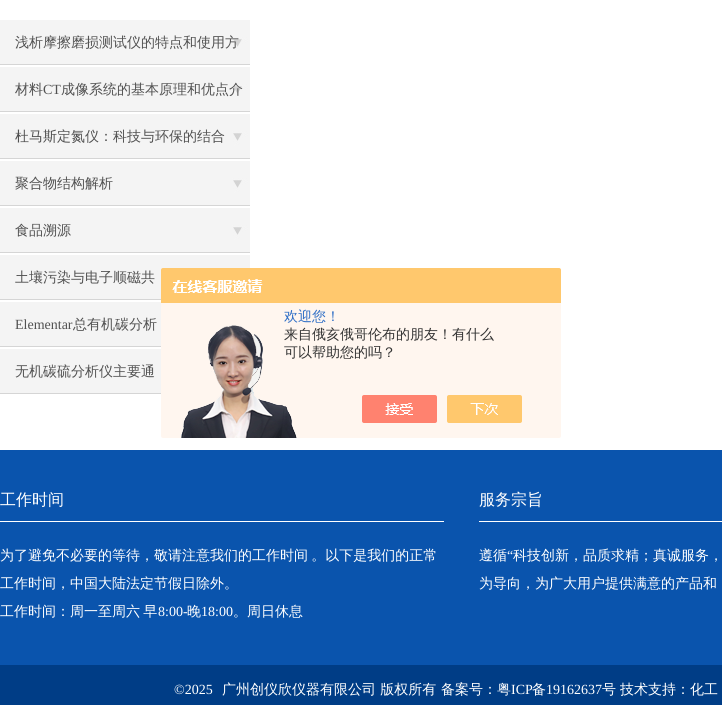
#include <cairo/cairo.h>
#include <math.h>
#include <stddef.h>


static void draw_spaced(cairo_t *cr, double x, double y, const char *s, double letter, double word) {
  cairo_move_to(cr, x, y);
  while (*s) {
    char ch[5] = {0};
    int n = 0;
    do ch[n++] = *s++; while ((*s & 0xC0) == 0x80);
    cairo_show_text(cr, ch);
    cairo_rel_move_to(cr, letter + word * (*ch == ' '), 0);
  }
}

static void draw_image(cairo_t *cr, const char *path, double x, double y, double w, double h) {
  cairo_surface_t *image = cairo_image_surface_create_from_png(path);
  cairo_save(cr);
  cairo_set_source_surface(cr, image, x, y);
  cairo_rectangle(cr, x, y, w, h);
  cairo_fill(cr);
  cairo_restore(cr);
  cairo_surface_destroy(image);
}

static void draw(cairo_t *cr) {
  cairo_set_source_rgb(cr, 1, 1, 1);
  cairo_paint(cr);
  draw_image(cr, "images/1.png", 0, 20, 250, 45);
  draw_image(cr, "images/1.png", 0, 67, 250, 45);
  draw_image(cr, "images/1.png", 0, 114, 250, 45);
  draw_image(cr, "images/1.png", 0, 161, 250, 45);
  draw_image(cr, "images/1.png", 0, 208, 250, 45);
  draw_image(cr, "images/1.png", 0, 255, 250, 45);
  draw_image(cr, "images/2.png", 0, 302, 161, 45);
  draw_image(cr, "images/2.png", 0, 349, 161, 45);
  draw_image(cr, "images/3.png", 161, 268, 400, 170);
  cairo_set_source_rgb(cr, 10 / 255.0, 84 / 255.0, 173 / 255.0);
  cairo_rectangle(cr, 0, 450, 722, 215);
  cairo_fill(cr);
  cairo_set_source_rgb(cr, 1, 1, 1);
  cairo_rectangle(cr, 0, 521, 444, 1);
  cairo_fill(cr);
  cairo_rectangle(cr, 479, 521, 243, 1);
  cairo_fill(cr);
  cairo_set_source_rgb(cr, 0, 61 / 255.0, 134 / 255.0);
  cairo_rectangle(cr, 0, 665, 722, 40);
  cairo_fill(cr);
  cairo_select_font_face(cr, "WenQuanYi Zen Hei Medium", CAIRO_FONT_SLANT_NORMAL, CAIRO_FONT_WEIGHT_NORMAL);
  cairo_set_font_size(cr, 14);
  cairo_set_source_rgb(cr, 81 / 255.0, 81 / 255.0, 81 / 255.0);
  cairo_move_to(cr, 15, 47);
  cairo_show_text(cr, "浅析摩擦磨损测试仪的特点和使用方");
  cairo_move_to(cr, 15, 94);
  cairo_show_text(cr, "材料");
  cairo_select_font_face(cr, "Liberation Serif", CAIRO_FONT_SLANT_NORMAL, CAIRO_FONT_WEIGHT_NORMAL);
  cairo_move_to(cr, 43, 94);
  cairo_show_text(cr, "CT");
  cairo_select_font_face(cr, "WenQuanYi Zen Hei Medium", CAIRO_FONT_SLANT_NORMAL, CAIRO_FONT_WEIGHT_NORMAL);
  cairo_move_to(cr, 61, 94);
  cairo_show_text(cr, "成像系统的基本原理和优点介");
  cairo_move_to(cr, 15, 141);
  cairo_show_text(cr, "杜马斯定氮仪：科技与环保的结合");
  cairo_move_to(cr, 15, 188);
  cairo_show_text(cr, "聚合物结构解析");
  cairo_move_to(cr, 15, 235);
  cairo_show_text(cr, "食品溯源");
  cairo_move_to(cr, 15, 282);
  cairo_show_text(cr, "土壤污染与电子顺磁共");
  cairo_select_font_face(cr, "Liberation Serif", CAIRO_FONT_SLANT_NORMAL, CAIRO_FONT_WEIGHT_NORMAL);
  cairo_move_to(cr, 15, 329);
  cairo_show_text(cr, "Elementar");
  cairo_select_font_face(cr, "WenQuanYi Zen Hei Medium", CAIRO_FONT_SLANT_NORMAL, CAIRO_FONT_WEIGHT_NORMAL);
  cairo_move_to(cr, 73, 329);
  cairo_show_text(cr, "总有机碳分析");
  cairo_move_to(cr, 15, 376);
  cairo_show_text(cr, "无机碳硫分析仪主要通");
  cairo_set_source_rgb(cr, 46 / 255.0, 110 / 255.0, 198 / 255.0);
  cairo_move_to(cr, 284, 321);
  cairo_show_text(cr, "欢迎您！");
  cairo_set_source_rgb(cr, 51 / 255.0, 51 / 255.0, 51 / 255.0);
  cairo_move_to(cr, 284, 339);
  cairo_show_text(cr, "来自俄亥俄哥伦布的朋友！有什么");
  cairo_move_to(cr, 284, 357);
  cairo_show_text(cr, "可以帮助您的吗？");
  cairo_set_font_size(cr, 16);
  cairo_set_source_rgb(cr, 1, 1, 1);
  cairo_move_to(cr, 0, 505);
  cairo_show_text(cr, "工作时间");
  cairo_set_font_size(cr, 14);
  draw_spaced(cr, 0, 560, "为了避免不必要的等待，敬请注意我们的工作时间 。以下是我们的正常", 0, -1);
  cairo_move_to(cr, 0, 588);
  cairo_show_text(cr, "工作时间，中国大陆法定节假日除外。");
  draw_spaced(cr, 0, 616, "工作时间：周一至周六 早", 0, -1);
  cairo_select_font_face(cr, "Liberation Serif", CAIRO_FONT_SLANT_NORMAL, CAIRO_FONT_WEIGHT_NORMAL);
  cairo_move_to(cr, 158, 616);
  cairo_show_text(cr, "8:00-");
  cairo_select_font_face(cr, "WenQuanYi Zen Hei Medium", CAIRO_FONT_SLANT_NORMAL, CAIRO_FONT_WEIGHT_NORMAL);
  cairo_move_to(cr, 187, 616);
  cairo_show_text(cr, "晚");
  cairo_select_font_face(cr, "Liberation Serif", CAIRO_FONT_SLANT_NORMAL, CAIRO_FONT_WEIGHT_NORMAL);
  cairo_move_to(cr, 201, 616);
  cairo_show_text(cr, "18:00");
  cairo_select_font_face(cr, "WenQuanYi Zen Hei Medium", CAIRO_FONT_SLANT_NORMAL, CAIRO_FONT_WEIGHT_NORMAL);
  cairo_move_to(cr, 233, 616);
  cairo_show_text(cr, "。周日休息");
  cairo_set_font_size(cr, 16);
  cairo_move_to(cr, 479, 505);
  cairo_show_text(cr, "服务宗旨");
  cairo_set_font_size(cr, 14);
  cairo_move_to(cr, 479, 560);
  cairo_show_text(cr, "遵循");
  cairo_select_font_face(cr, "Liberation Serif", CAIRO_FONT_SLANT_NORMAL, CAIRO_FONT_WEIGHT_NORMAL);
  cairo_move_to(cr, 507, 560);
  cairo_show_text(cr, "“");
  cairo_select_font_face(cr, "WenQuanYi Zen Hei Medium", CAIRO_FONT_SLANT_NORMAL, CAIRO_FONT_WEIGHT_NORMAL);
  cairo_move_to(cr, 513, 560);
  cairo_show_text(cr, "科技创新，品质求精；真诚服务，");
  cairo_move_to(cr, 479, 588);
  cairo_show_text(cr, "为导向，为广大用户提供满意的产品和");
  cairo_select_font_face(cr, "Liberation Serif", CAIRO_FONT_SLANT_NORMAL, CAIRO_FONT_WEIGHT_NORMAL);
  cairo_move_to(cr, 174, 694);
  cairo_show_text(cr, "©2025");
  cairo_select_font_face(cr, "WenQuanYi Zen Hei Medium", CAIRO_FONT_SLANT_NORMAL, CAIRO_FONT_WEIGHT_NORMAL);
  cairo_move_to(cr, 222, 694);
  cairo_show_text(cr, "广州创仪欣仪器有限公司 版权所有");
  cairo_move_to(cr, 441, 694);
  cairo_show_text(cr, "备案号：粤");
  cairo_select_font_face(cr, "Liberation Serif", CAIRO_FONT_SLANT_NORMAL, CAIRO_FONT_WEIGHT_NORMAL);
  cairo_move_to(cr, 511, 694);
  cairo_show_text(cr, "ICP");
  cairo_select_font_face(cr, "WenQuanYi Zen Hei Medium", CAIRO_FONT_SLANT_NORMAL, CAIRO_FONT_WEIGHT_NORMAL);
  cairo_move_to(cr, 532, 694);
  cairo_show_text(cr, "备");
  cairo_select_font_face(cr, "Liberation Serif", CAIRO_FONT_SLANT_NORMAL, CAIRO_FONT_WEIGHT_NORMAL);
  cairo_move_to(cr, 546, 694);
  cairo_show_text(cr, "19162637");
  cairo_select_font_face(cr, "WenQuanYi Zen Hei Medium", CAIRO_FONT_SLANT_NORMAL, CAIRO_FONT_WEIGHT_NORMAL);
  cairo_move_to(cr, 602, 694);
  cairo_show_text(cr, "号");
  cairo_move_to(cr, 620, 694);
  cairo_show_text(cr, "技术支持：化工");
}

int main(void) {
  cairo_surface_t *surface = cairo_image_surface_create(CAIRO_FORMAT_RGB24, 722, 705);
  cairo_t *cr = cairo_create(surface);
  cairo_font_options_t *options = cairo_font_options_create();
  cairo_font_options_set_hint_metrics(options, CAIRO_HINT_METRICS_OFF);
  cairo_font_options_set_hint_style(options, CAIRO_HINT_STYLE_NONE);
  cairo_set_font_options(cr, options);
  cairo_set_miter_limit(cr, 4);
  draw(cr);
  cairo_surface_write_to_png(surface, "out.png");
  cairo_font_options_destroy(options);
  cairo_destroy(cr);
  cairo_surface_destroy(surface);
  return 0;
}
